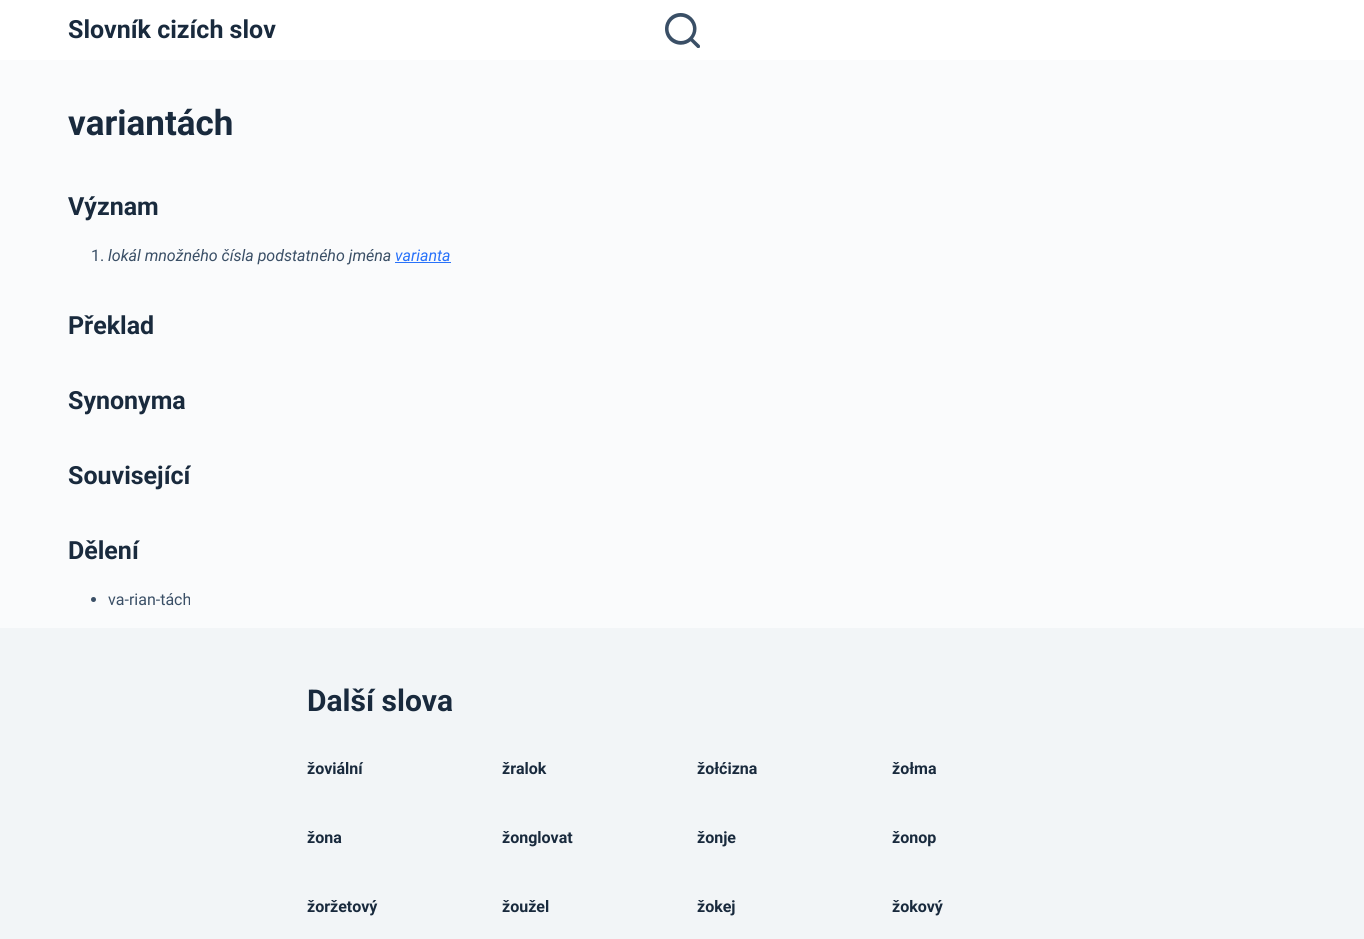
#include <cairo/cairo.h>
#include <math.h>
#include <stddef.h>


static void draw_image(cairo_t *cr, const char *path, double x, double y, double w, double h) {
  cairo_surface_t *image = cairo_image_surface_create_from_png(path);
  cairo_save(cr);
  cairo_set_source_surface(cr, image, x, y);
  cairo_rectangle(cr, x, y, w, h);
  cairo_fill(cr);
  cairo_restore(cr);
  cairo_surface_destroy(image);
}

static void draw(cairo_t *cr) {
  cairo_set_source_rgb(cr, 250 / 255.0, 251 / 255.0, 252 / 255.0);
  cairo_paint(cr);
  cairo_set_source_rgb(cr, 1, 1, 1);
  cairo_rectangle(cr, 0, 0, 1364, 60);
  cairo_fill(cr);
  draw_image(cr, "images/1.png", 665, 13, 35, 35);
  cairo_set_source_rgb(cr, 40 / 255.0, 114 / 255.0, 250 / 255.0);
  cairo_rectangle(cr, 395, 262, 56, 1);
  cairo_fill(cr);
  cairo_set_source_rgb(cr, 58 / 255.0, 79 / 255.0, 102 / 255.0);
  cairo_arc(cr, 93.5, 599.5, 2.5, 0, 2 * M_PI);
  cairo_fill(cr);
  cairo_set_source_rgb(cr, 242 / 255.0, 245 / 255.0, 247 / 255.0);
  cairo_rectangle(cr, 0, 628, 1364, 311);
  cairo_fill(cr);
  cairo_select_font_face(cr, "Roboto", CAIRO_FONT_SLANT_NORMAL, CAIRO_FONT_WEIGHT_BOLD);
  cairo_set_font_size(cr, 25);
  cairo_set_source_rgb(cr, 25 / 255.0, 42 / 255.0, 61 / 255.0);
  cairo_move_to(cr, 68, 38);
  cairo_show_text(cr, "Slovník cizích slov");
  cairo_set_font_size(cr, 35);
  cairo_move_to(cr, 68, 135);
  cairo_show_text(cr, "variantách");
  cairo_set_font_size(cr, 25);
  cairo_move_to(cr, 68, 215);
  cairo_show_text(cr, "Význam");
  cairo_select_font_face(cr, "Roboto", CAIRO_FONT_SLANT_NORMAL, CAIRO_FONT_WEIGHT_NORMAL);
  cairo_set_font_size(cr, 16);
  cairo_set_source_rgb(cr, 58 / 255.0, 79 / 255.0, 102 / 255.0);
  cairo_move_to(cr, 91, 261);
  cairo_show_text(cr, "1.");
  cairo_select_font_face(cr, "Roboto", CAIRO_FONT_SLANT_ITALIC, CAIRO_FONT_WEIGHT_NORMAL);
  cairo_move_to(cr, 108, 261);
  cairo_show_text(cr, "lokál množného čísla podstatného jména");
  cairo_set_source_rgb(cr, 40 / 255.0, 114 / 255.0, 250 / 255.0);
  cairo_move_to(cr, 395, 261);
  cairo_show_text(cr, "varianta");
  cairo_select_font_face(cr, "Roboto", CAIRO_FONT_SLANT_NORMAL, CAIRO_FONT_WEIGHT_BOLD);
  cairo_set_font_size(cr, 25);
  cairo_set_source_rgb(cr, 25 / 255.0, 42 / 255.0, 61 / 255.0);
  cairo_move_to(cr, 68, 334);
  cairo_show_text(cr, "Překlad");
  cairo_move_to(cr, 68, 409);
  cairo_show_text(cr, "Synonyma");
  cairo_move_to(cr, 68, 484);
  cairo_show_text(cr, "Související");
  cairo_move_to(cr, 68, 559);
  cairo_show_text(cr, "Dělení");
  cairo_select_font_face(cr, "Roboto", CAIRO_FONT_SLANT_NORMAL, CAIRO_FONT_WEIGHT_NORMAL);
  cairo_set_font_size(cr, 16);
  cairo_set_source_rgb(cr, 58 / 255.0, 79 / 255.0, 102 / 255.0);
  cairo_move_to(cr, 108, 605);
  cairo_show_text(cr, "va-rian-tách");
  cairo_select_font_face(cr, "Roboto", CAIRO_FONT_SLANT_NORMAL, CAIRO_FONT_WEIGHT_BOLD);
  cairo_set_font_size(cr, 30);
  cairo_set_source_rgb(cr, 25 / 255.0, 42 / 255.0, 61 / 255.0);
  cairo_move_to(cr, 307, 711);
  cairo_show_text(cr, "Další slova");
  cairo_set_font_size(cr, 16);
  cairo_move_to(cr, 307, 774);
  cairo_show_text(cr, "žoviální");
  cairo_move_to(cr, 502, 774);
  cairo_show_text(cr, "žralok");
  cairo_move_to(cr, 697, 774);
  cairo_show_text(cr, "žołćizna");
  cairo_move_to(cr, 892, 774);
  cairo_show_text(cr, "žołma");
  cairo_move_to(cr, 307, 843);
  cairo_show_text(cr, "žona");
  cairo_move_to(cr, 502, 843);
  cairo_show_text(cr, "žonglovat");
  cairo_move_to(cr, 697, 843);
  cairo_show_text(cr, "žonje");
  cairo_move_to(cr, 892, 843);
  cairo_show_text(cr, "žonop");
  cairo_move_to(cr, 307, 912);
  cairo_show_text(cr, "žoržetový");
  cairo_move_to(cr, 502, 912);
  cairo_show_text(cr, "žoužel");
  cairo_move_to(cr, 697, 912);
  cairo_show_text(cr, "žokej");
  cairo_move_to(cr, 892, 912);
  cairo_show_text(cr, "žokový");
}

int main(void) {
  cairo_surface_t *surface = cairo_image_surface_create(CAIRO_FORMAT_RGB24, 1364, 939);
  cairo_t *cr = cairo_create(surface);
  cairo_font_options_t *options = cairo_font_options_create();
  cairo_font_options_set_hint_metrics(options, CAIRO_HINT_METRICS_OFF);
  cairo_font_options_set_hint_style(options, CAIRO_HINT_STYLE_NONE);
  cairo_set_font_options(cr, options);
  cairo_set_miter_limit(cr, 4);
  draw(cr);
  cairo_surface_write_to_png(surface, "out.png");
  cairo_font_options_destroy(options);
  cairo_destroy(cr);
  cairo_surface_destroy(surface);
  return 0;
}
